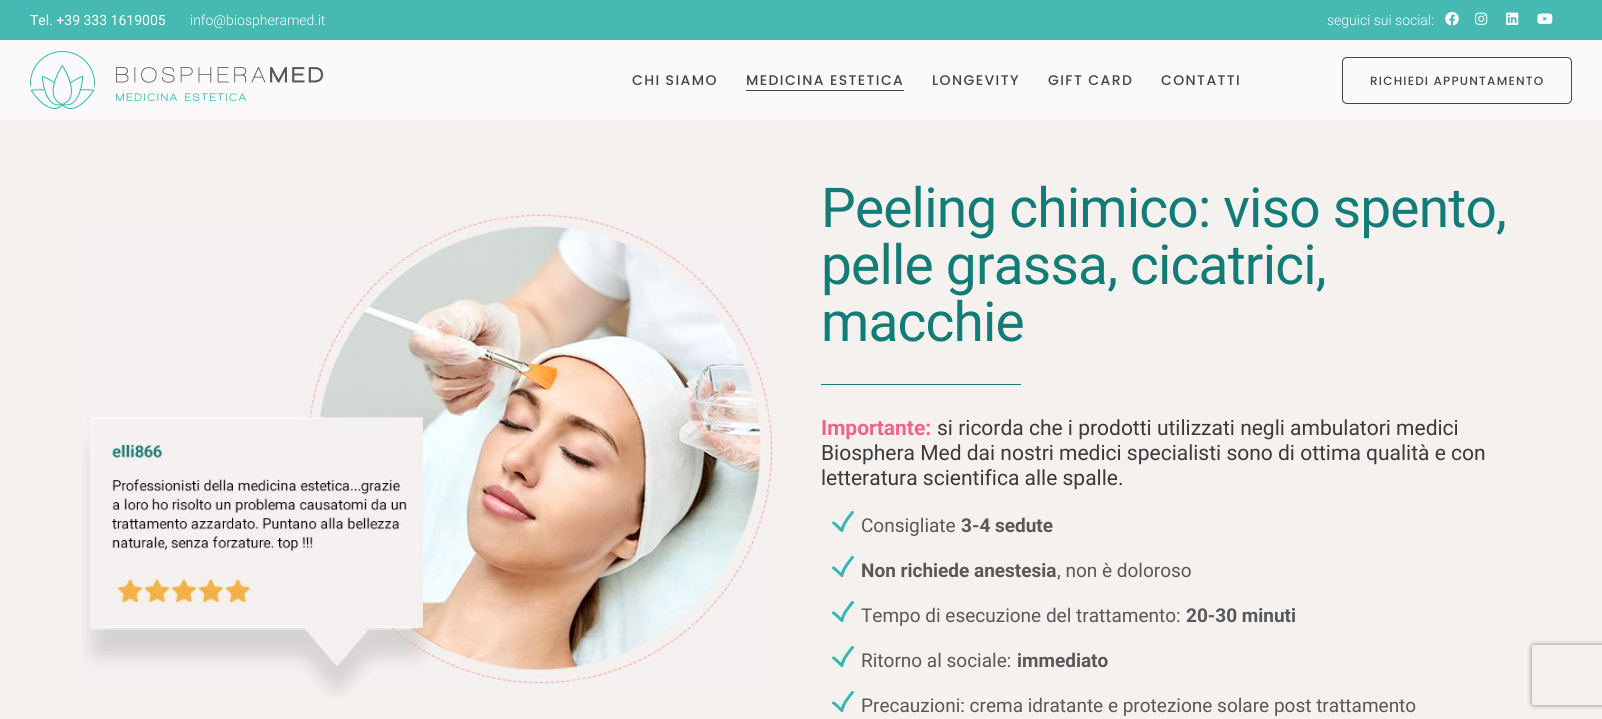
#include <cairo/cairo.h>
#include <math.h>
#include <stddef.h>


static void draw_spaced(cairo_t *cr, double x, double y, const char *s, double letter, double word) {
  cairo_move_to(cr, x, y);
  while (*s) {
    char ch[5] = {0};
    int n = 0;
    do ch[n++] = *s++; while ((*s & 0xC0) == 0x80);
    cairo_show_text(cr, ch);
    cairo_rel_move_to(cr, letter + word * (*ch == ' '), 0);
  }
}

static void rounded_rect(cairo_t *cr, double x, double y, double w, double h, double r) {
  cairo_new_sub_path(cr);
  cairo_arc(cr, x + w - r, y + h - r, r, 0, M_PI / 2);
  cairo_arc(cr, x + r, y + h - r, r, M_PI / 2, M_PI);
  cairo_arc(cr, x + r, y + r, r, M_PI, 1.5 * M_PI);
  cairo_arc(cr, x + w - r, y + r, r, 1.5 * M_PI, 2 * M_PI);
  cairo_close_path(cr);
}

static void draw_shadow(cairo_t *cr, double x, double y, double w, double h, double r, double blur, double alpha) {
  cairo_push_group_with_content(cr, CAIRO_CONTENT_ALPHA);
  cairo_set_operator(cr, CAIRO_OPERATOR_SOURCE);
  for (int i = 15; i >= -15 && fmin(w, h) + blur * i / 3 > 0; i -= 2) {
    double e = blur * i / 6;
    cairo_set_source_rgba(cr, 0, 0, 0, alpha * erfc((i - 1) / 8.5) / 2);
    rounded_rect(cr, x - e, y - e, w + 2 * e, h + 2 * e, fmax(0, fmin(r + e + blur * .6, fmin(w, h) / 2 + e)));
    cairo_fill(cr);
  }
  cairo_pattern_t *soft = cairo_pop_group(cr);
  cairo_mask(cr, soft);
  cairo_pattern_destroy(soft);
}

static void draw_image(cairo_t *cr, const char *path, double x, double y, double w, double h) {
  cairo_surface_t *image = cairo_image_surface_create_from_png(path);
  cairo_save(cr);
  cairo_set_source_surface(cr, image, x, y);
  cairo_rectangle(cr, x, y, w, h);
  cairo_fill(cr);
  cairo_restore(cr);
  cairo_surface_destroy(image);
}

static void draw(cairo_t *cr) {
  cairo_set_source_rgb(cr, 244 / 255.0, 241 / 255.0, 239 / 255.0);
  cairo_paint(cr);
  cairo_set_source_rgb(cr, 69 / 255.0, 185 / 255.0, 178 / 255.0);
  cairo_rectangle(cr, 0, 0, 1602, 40);
  cairo_fill(cr);
  draw_image(cr, "images/1.png", 1445, 12, 14, 14);
  draw_image(cr, "images/2.png", 1475, 12, 13, 13);
  draw_image(cr, "images/3.png", 1506, 12, 13, 13);
  draw_image(cr, "images/4.png", 1537, 13, 16, 11);
  cairo_set_source_rgb(cr, 251 / 255.0, 249 / 255.0, 249 / 255.0);
  cairo_rectangle(cr, 0, 40, 1602, 80);
  cairo_fill(cr);
  draw_image(cr, "images/5.png", 30, 51, 293, 58);
  cairo_set_source_rgb(cr, 69 / 255.0, 69 / 255.0, 69 / 255.0);
  cairo_rectangle(cr, 746, 90, 158, 1);
  cairo_fill(cr);
  rounded_rect(cr, 1342.5, 57.5, 229, 46, 4.5);
  cairo_set_line_width(cr, 1);
  cairo_stroke(cr);
  draw_image(cr, "images/6.png", 82, 213, 696, 486);
  cairo_set_source_rgb(cr, 19 / 255.0, 124 / 255.0, 118 / 255.0);
  cairo_rectangle(cr, 821, 384, 200, 1);
  cairo_fill(cr);
  draw_image(cr, "images/7.png", 832, 511, 22, 21);
  draw_image(cr, "images/7.png", 832, 556, 22, 21);
  draw_image(cr, "images/7.png", 832, 601, 22, 21);
  draw_image(cr, "images/7.png", 832, 646, 22, 21);
  draw_image(cr, "images/7.png", 832, 691, 22, 21);
  cairo_save(cr);
  cairo_set_fill_rule(cr, CAIRO_FILL_RULE_EVEN_ODD);
  cairo_new_path(cr);
  cairo_move_to(cr, 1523, 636);
  cairo_line_to(cr, 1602, 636);
  cairo_line_to(cr, 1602, 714);
  cairo_line_to(cr, 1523, 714);
  cairo_close_path(cr);
  cairo_move_to(cr, 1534, 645);
  cairo_line_to(cr, 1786, 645);
  cairo_curve_to(cr, 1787, 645, 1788, 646, 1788, 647);
  cairo_line_to(cr, 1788, 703);
  cairo_curve_to(cr, 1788, 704, 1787, 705, 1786, 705);
  cairo_line_to(cr, 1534, 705);
  cairo_curve_to(cr, 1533, 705, 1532, 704, 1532, 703);
  cairo_line_to(cr, 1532, 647);
  cairo_curve_to(cr, 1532, 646, 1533, 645, 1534, 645);
  cairo_close_path(cr);
  cairo_clip(cr);
  cairo_set_source_rgb(cr, 128 / 255.0, 128 / 255.0, 128 / 255.0);
  draw_shadow(cr, 1532, 645, 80, 60, 2, 2.5, 1);
  cairo_restore(cr);
  cairo_select_font_face(cr, "Roboto", CAIRO_FONT_SLANT_NORMAL, CAIRO_FONT_WEIGHT_NORMAL);
  cairo_set_font_size(cr, 14);
  cairo_set_source_rgb(cr, 1, 1, 1);
  cairo_move_to(cr, 30, 25);
  cairo_show_text(cr, "Tel. +39 333 1619005");
  cairo_select_font_face(cr, "Roboto Light", CAIRO_FONT_SLANT_NORMAL, CAIRO_FONT_WEIGHT_NORMAL);
  cairo_move_to(cr, 190, 25);
  cairo_show_text(cr, "info@biospheramed.it");
  cairo_move_to(cr, 1327, 25);
  cairo_show_text(cr, "seguici sui social:");
  cairo_select_font_face(cr, "Poppins Medium", CAIRO_FONT_SLANT_NORMAL, CAIRO_FONT_WEIGHT_NORMAL);
  cairo_set_source_rgb(cr, 69 / 255.0, 69 / 255.0, 69 / 255.0);
  draw_spaced(cr, 632, 85, "CHI SIAMO", 1.4, 0);
  draw_spaced(cr, 746, 85, "MEDICINA ESTETICA", 1.4, 0);
  draw_spaced(cr, 932, 85, "LONGEVITY", 1.4, 0);
  draw_spaced(cr, 1048, 85, "GIFT CARD", 1.4, 0);
  draw_spaced(cr, 1161, 85, "CONTATTI", 1.4, 0);
  cairo_set_font_size(cr, 12);
  draw_spaced(cr, 1370, 85, "RICHIEDI APPUNTAMENTO", 1.2, 0);
  cairo_select_font_face(cr, "Roboto", CAIRO_FONT_SLANT_NORMAL, CAIRO_FONT_WEIGHT_NORMAL);
  cairo_set_font_size(cr, 55);
  cairo_set_source_rgb(cr, 19 / 255.0, 124 / 255.0, 118 / 255.0);
  draw_spaced(cr, 821, 227, "Peeling chimico: viso spento,", -0.8, 0);
  draw_spaced(cr, 821, 284, "pelle grassa, cicatrici,", -0.8, 0);
  draw_spaced(cr, 821, 341, "macchie", -0.8, 0);
  cairo_select_font_face(cr, "Roboto", CAIRO_FONT_SLANT_NORMAL, CAIRO_FONT_WEIGHT_BOLD);
  cairo_set_font_size(cr, 21);
  cairo_set_source_rgb(cr, 243 / 255.0, 97 / 255.0, 144 / 255.0);
  cairo_move_to(cr, 821, 435);
  cairo_show_text(cr, "Importante:");
  cairo_select_font_face(cr, "Roboto", CAIRO_FONT_SLANT_NORMAL, CAIRO_FONT_WEIGHT_NORMAL);
  cairo_set_source_rgb(cr, 58 / 255.0, 58 / 255.0, 58 / 255.0);
  cairo_move_to(cr, 937, 435);
  cairo_show_text(cr, "si ricorda che i prodotti utilizzati negli ambulatori medici");
  cairo_move_to(cr, 821, 460);
  cairo_show_text(cr, "Biosphera Med dai nostri medici specialisti sono di ottima qualità e con");
  cairo_move_to(cr, 821, 485);
  cairo_show_text(cr, "letteratura scientifica alle spalle.");
  cairo_set_font_size(cr, 19);
  cairo_set_source_rgb(cr, 88 / 255.0, 88 / 255.0, 88 / 255.0);
  cairo_move_to(cr, 861, 532);
  cairo_show_text(cr, "Consigliate");
  cairo_select_font_face(cr, "Roboto", CAIRO_FONT_SLANT_NORMAL, CAIRO_FONT_WEIGHT_BOLD);
  cairo_move_to(cr, 961, 532);
  cairo_show_text(cr, "3-4 sedute");
  cairo_move_to(cr, 861, 577);
  cairo_show_text(cr, "Non richiede anestesia");
  cairo_select_font_face(cr, "Roboto", CAIRO_FONT_SLANT_NORMAL, CAIRO_FONT_WEIGHT_NORMAL);
  cairo_move_to(cr, 1057, 577);
  cairo_show_text(cr, ", non è doloroso");
  cairo_move_to(cr, 861, 622);
  cairo_show_text(cr, "Tempo di esecuzione del trattamento:");
  cairo_select_font_face(cr, "Roboto", CAIRO_FONT_SLANT_NORMAL, CAIRO_FONT_WEIGHT_BOLD);
  cairo_move_to(cr, 1186, 622);
  cairo_show_text(cr, "20-30 minuti");
  cairo_select_font_face(cr, "Roboto", CAIRO_FONT_SLANT_NORMAL, CAIRO_FONT_WEIGHT_NORMAL);
  cairo_move_to(cr, 861, 667);
  cairo_show_text(cr, "Ritorno al sociale:");
  cairo_select_font_face(cr, "Roboto", CAIRO_FONT_SLANT_NORMAL, CAIRO_FONT_WEIGHT_BOLD);
  cairo_move_to(cr, 1017, 667);
  cairo_show_text(cr, "immediato");
  cairo_select_font_face(cr, "Roboto", CAIRO_FONT_SLANT_NORMAL, CAIRO_FONT_WEIGHT_NORMAL);
  cairo_move_to(cr, 861, 712);
  cairo_show_text(cr, "Precauzioni: crema idratante e protezione solare post trattamento");
}

int main(void) {
  cairo_surface_t *surface = cairo_image_surface_create(CAIRO_FORMAT_RGB24, 1602, 719);
  cairo_t *cr = cairo_create(surface);
  cairo_font_options_t *options = cairo_font_options_create();
  cairo_font_options_set_hint_metrics(options, CAIRO_HINT_METRICS_OFF);
  cairo_font_options_set_hint_style(options, CAIRO_HINT_STYLE_NONE);
  cairo_set_font_options(cr, options);
  cairo_set_miter_limit(cr, 4);
  draw(cr);
  cairo_surface_write_to_png(surface, "out.png");
  cairo_font_options_destroy(options);
  cairo_destroy(cr);
  cairo_surface_destroy(surface);
  return 0;
}
